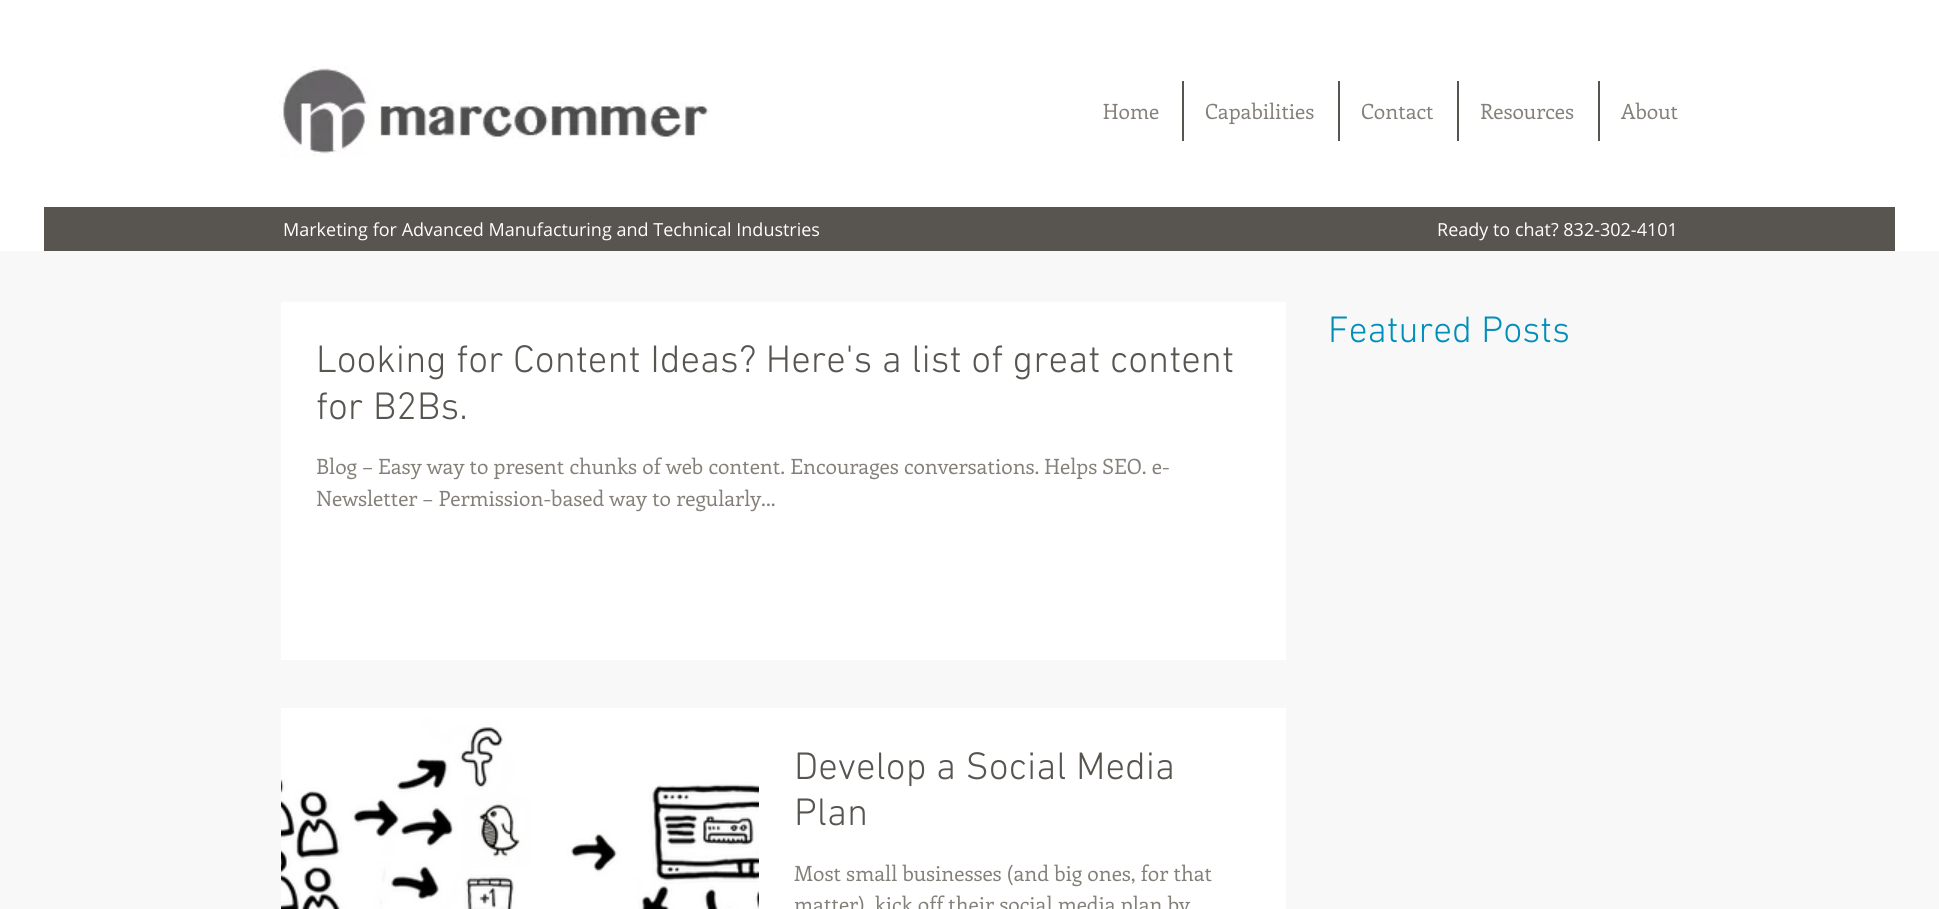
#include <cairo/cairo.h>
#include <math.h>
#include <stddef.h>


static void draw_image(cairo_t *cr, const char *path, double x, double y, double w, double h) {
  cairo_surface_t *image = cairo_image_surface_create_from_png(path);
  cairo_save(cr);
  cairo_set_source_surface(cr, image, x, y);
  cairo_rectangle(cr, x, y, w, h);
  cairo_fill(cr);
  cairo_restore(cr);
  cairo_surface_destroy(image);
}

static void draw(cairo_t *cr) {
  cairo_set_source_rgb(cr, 248 / 255.0, 248 / 255.0, 248 / 255.0);
  cairo_paint(cr);
  cairo_set_source_rgb(cr, 1, 1, 1);
  cairo_rectangle(cr, 0, 0, 1939, 251);
  cairo_fill(cr);
  draw_image(cr, "images/1.png", 279, 66, 431, 91);
  cairo_set_source_rgb(cr, 88 / 255.0, 85 / 255.0, 81 / 255.0);
  cairo_rectangle(cr, 1182, 81, 2, 60);
  cairo_fill(cr);
  cairo_rectangle(cr, 1338, 81, 2, 60);
  cairo_fill(cr);
  cairo_rectangle(cr, 1457, 81, 2, 60);
  cairo_fill(cr);
  cairo_rectangle(cr, 1598, 81, 2, 60);
  cairo_fill(cr);
  cairo_rectangle(cr, 44, 207, 1851, 44);
  cairo_fill(cr);
  cairo_set_source_rgb(cr, 1, 1, 1);
  cairo_rectangle(cr, 281, 302, 1005, 358);
  cairo_fill(cr);
  draw_image(cr, "images/2.png", 281, 708, 478, 201);
  cairo_rectangle(cr, 759, 708, 527, 201);
  cairo_fill(cr);
  cairo_select_font_face(cr, "Enriqueta", CAIRO_FONT_SLANT_NORMAL, CAIRO_FONT_WEIGHT_NORMAL);
  cairo_set_font_size(cr, 21);
  cairo_set_source_rgb(cr, 132 / 255.0, 128 / 255.0, 121 / 255.0);
  cairo_move_to(cr, 1103, 119);
  cairo_show_text(cr, "Home");
  cairo_move_to(cr, 1205, 119);
  cairo_show_text(cr, "Capabilities");
  cairo_move_to(cr, 1361, 119);
  cairo_show_text(cr, "Contact");
  cairo_move_to(cr, 1480, 119);
  cairo_show_text(cr, "Resources");
  cairo_move_to(cr, 1621, 119);
  cairo_show_text(cr, "About");
  cairo_select_font_face(cr, "Open Sans", CAIRO_FONT_SLANT_NORMAL, CAIRO_FONT_WEIGHT_NORMAL);
  cairo_set_font_size(cr, 18);
  cairo_set_source_rgb(cr, 1, 1, 1);
  cairo_move_to(cr, 283, 236);
  cairo_show_text(cr, "Marketing for Advanced Manufacturing and Technical Industries");
  cairo_move_to(cr, 1437, 236);
  cairo_show_text(cr, "Ready to chat? 832-302-4101");
  cairo_select_font_face(cr, "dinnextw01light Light", CAIRO_FONT_SLANT_NORMAL, CAIRO_FONT_WEIGHT_NORMAL);
  cairo_set_font_size(cr, 37.5);
  cairo_set_source_rgb(cr, 1 / 255.0, 143 / 255.0, 186 / 255.0);
  cairo_move_to(cr, 1328, 342);
  cairo_show_text(cr, "Featured Posts");
  cairo_set_font_size(cr, 39);
  cairo_set_source_rgb(cr, 88 / 255.0, 85 / 255.0, 81 / 255.0);
  cairo_move_to(cr, 316, 372);
  cairo_show_text(cr, "Looking for Content Ideas? Here's a list of great content");
  cairo_move_to(cr, 316, 419);
  cairo_show_text(cr, "for B2Bs.");
  cairo_select_font_face(cr, "Enriqueta", CAIRO_FONT_SLANT_NORMAL, CAIRO_FONT_WEIGHT_NORMAL);
  cairo_set_font_size(cr, 21);
  cairo_set_source_rgb(cr, 132 / 255.0, 128 / 255.0, 121 / 255.0);
  cairo_move_to(cr, 316, 474);
  cairo_show_text(cr, "Blog – Easy way to present chunks of web content. Encourages conversations. Helps SEO. e-");
  cairo_move_to(cr, 316, 506);
  cairo_show_text(cr, "Newsletter – Permission-based way to regularly...");
  cairo_select_font_face(cr, "dinnextw01light Light", CAIRO_FONT_SLANT_NORMAL, CAIRO_FONT_WEIGHT_NORMAL);
  cairo_set_font_size(cr, 39);
  cairo_set_source_rgb(cr, 88 / 255.0, 85 / 255.0, 81 / 255.0);
  cairo_move_to(cr, 794, 779);
  cairo_show_text(cr, "Develop a Social Media");
  cairo_move_to(cr, 794, 825);
  cairo_show_text(cr, "Plan");
  cairo_select_font_face(cr, "Enriqueta", CAIRO_FONT_SLANT_NORMAL, CAIRO_FONT_WEIGHT_NORMAL);
  cairo_set_font_size(cr, 21);
  cairo_set_source_rgb(cr, 132 / 255.0, 128 / 255.0, 121 / 255.0);
  cairo_move_to(cr, 794, 881);
  cairo_show_text(cr, "Most small businesses (and big ones, for that");
  cairo_move_to(cr, 794, 912);
  cairo_show_text(cr, "matter), kick off their social media plan by");
}

int main(void) {
  cairo_surface_t *surface = cairo_image_surface_create(CAIRO_FORMAT_RGB24, 1939, 909);
  cairo_t *cr = cairo_create(surface);
  cairo_font_options_t *options = cairo_font_options_create();
  cairo_font_options_set_hint_metrics(options, CAIRO_HINT_METRICS_OFF);
  cairo_font_options_set_hint_style(options, CAIRO_HINT_STYLE_NONE);
  cairo_set_font_options(cr, options);
  cairo_set_miter_limit(cr, 4);
  draw(cr);
  cairo_surface_write_to_png(surface, "out.png");
  cairo_font_options_destroy(options);
  cairo_destroy(cr);
  cairo_surface_destroy(surface);
  return 0;
}
